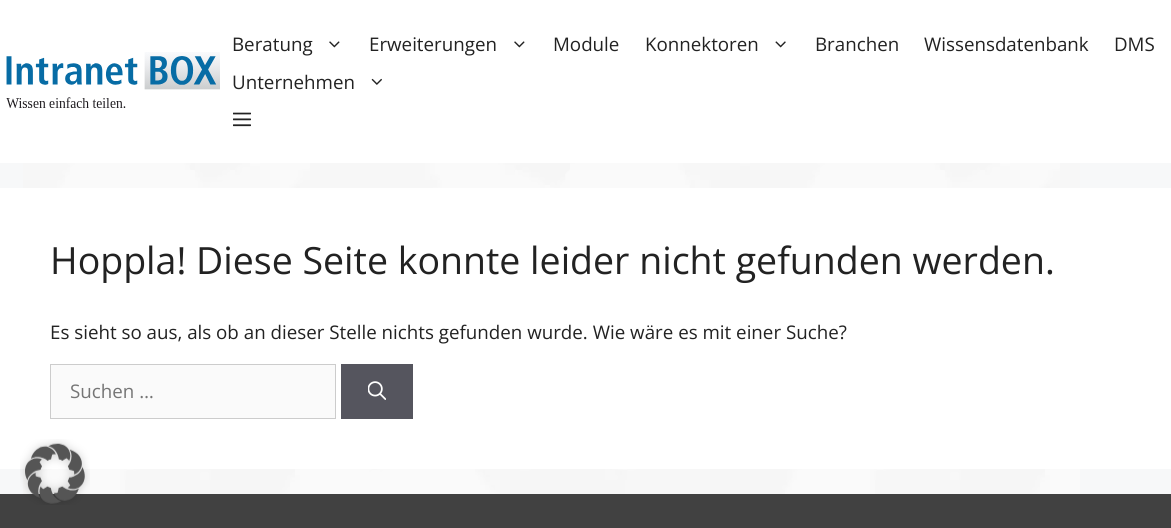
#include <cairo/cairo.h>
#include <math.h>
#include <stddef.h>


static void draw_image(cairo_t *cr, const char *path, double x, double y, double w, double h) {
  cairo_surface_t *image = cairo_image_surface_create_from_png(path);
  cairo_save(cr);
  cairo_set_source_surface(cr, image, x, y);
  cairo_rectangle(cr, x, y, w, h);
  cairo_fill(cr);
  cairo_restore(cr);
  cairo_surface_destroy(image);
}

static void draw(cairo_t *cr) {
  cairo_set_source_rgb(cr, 247 / 255.0, 248 / 255.0, 249 / 255.0);
  cairo_paint(cr);
  draw_image(cr, "images/1.png", 23, 163, 1057, 331);
  cairo_set_source_rgb(cr, 1, 1, 1);
  cairo_rectangle(cr, 0, 0, 1171, 163);
  cairo_fill(cr);
  draw_image(cr, "images/2.png", 6, 52, 214, 56);
  draw_image(cr, "images/3.png", 329, 41, 11, 7);
  draw_image(cr, "images/3.png", 514, 41, 11, 7);
  draw_image(cr, "images/4.png", 775, 41, 11, 7);
  draw_image(cr, "images/5.png", 371, 78, 11, 7);
  draw_image(cr, "images/6.png", 233, 112, 18, 15);
  cairo_rectangle(cr, 0, 188, 1171, 281);
  cairo_fill(cr);
  cairo_set_source_rgb(cr, 250 / 255.0, 250 / 255.0, 250 / 255.0);
  cairo_rectangle(cr, 50.5, 364.5, 285, 54);
  cairo_fill_preserve(cr);
  cairo_set_source_rgb(cr, 204 / 255.0, 204 / 255.0, 204 / 255.0);
  cairo_set_line_width(cr, 1);
  cairo_stroke(cr);
  cairo_set_source_rgb(cr, 85 / 255.0, 85 / 255.0, 94 / 255.0);
  cairo_rectangle(cr, 341, 364, 72, 55);
  cairo_fill(cr);
  draw_image(cr, "images/7.png", 368, 381, 18, 19);
  cairo_set_source_rgb(cr, 65 / 255.0, 65 / 255.0, 65 / 255.0);
  cairo_rectangle(cr, 0, 494, 1171, 34);
  cairo_fill(cr);
  draw_image(cr, "images/8.png", 20, 439, 70, 66);
  cairo_select_font_face(cr, "Open Sans", CAIRO_FONT_SLANT_NORMAL, CAIRO_FONT_WEIGHT_NORMAL);
  cairo_set_font_size(cr, 18.75);
  cairo_set_source_rgb(cr, 34 / 255.0, 34 / 255.0, 34 / 255.0);
  cairo_move_to(cr, 232, 51);
  cairo_show_text(cr, "Beratung");
  cairo_move_to(cr, 369, 51);
  cairo_show_text(cr, "Erweiterungen");
  cairo_move_to(cr, 553, 51);
  cairo_show_text(cr, "Module");
  cairo_move_to(cr, 645, 51);
  cairo_show_text(cr, "Konnektoren");
  cairo_move_to(cr, 815, 51);
  cairo_show_text(cr, "Branchen");
  cairo_move_to(cr, 924, 51);
  cairo_show_text(cr, "Wissensdatenbank");
  cairo_move_to(cr, 1114, 51);
  cairo_show_text(cr, "DMS");
  cairo_move_to(cr, 232, 89);
  cairo_show_text(cr, "Unternehmen");
  cairo_set_font_size(cr, 37.5);
  cairo_move_to(cr, 50, 274);
  cairo_show_text(cr, "Hoppla! Diese Seite konnte leider nicht gefunden werden.");
  cairo_set_font_size(cr, 18.75);
  cairo_move_to(cr, 50, 339);
  cairo_show_text(cr, "Es sieht so aus, als ob an dieser Stelle nichts gefunden wurde. Wie wäre es mit einer Suche?");
  cairo_set_source_rgb(cr, 117 / 255.0, 117 / 255.0, 117 / 255.0);
  cairo_move_to(cr, 70, 398);
  cairo_show_text(cr, "Suchen …");
}

int main(void) {
  cairo_surface_t *surface = cairo_image_surface_create(CAIRO_FORMAT_RGB24, 1171, 528);
  cairo_t *cr = cairo_create(surface);
  cairo_font_options_t *options = cairo_font_options_create();
  cairo_font_options_set_hint_metrics(options, CAIRO_HINT_METRICS_OFF);
  cairo_font_options_set_hint_style(options, CAIRO_HINT_STYLE_NONE);
  cairo_set_font_options(cr, options);
  cairo_set_miter_limit(cr, 4);
  draw(cr);
  cairo_surface_write_to_png(surface, "out.png");
  cairo_font_options_destroy(options);
  cairo_destroy(cr);
  cairo_surface_destroy(surface);
  return 0;
}
